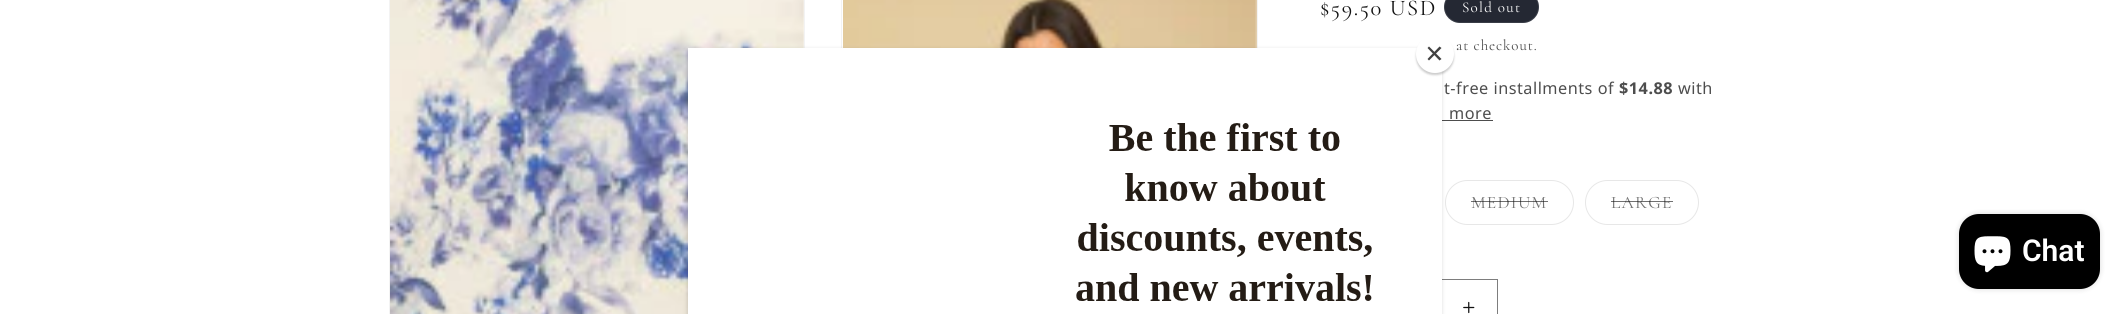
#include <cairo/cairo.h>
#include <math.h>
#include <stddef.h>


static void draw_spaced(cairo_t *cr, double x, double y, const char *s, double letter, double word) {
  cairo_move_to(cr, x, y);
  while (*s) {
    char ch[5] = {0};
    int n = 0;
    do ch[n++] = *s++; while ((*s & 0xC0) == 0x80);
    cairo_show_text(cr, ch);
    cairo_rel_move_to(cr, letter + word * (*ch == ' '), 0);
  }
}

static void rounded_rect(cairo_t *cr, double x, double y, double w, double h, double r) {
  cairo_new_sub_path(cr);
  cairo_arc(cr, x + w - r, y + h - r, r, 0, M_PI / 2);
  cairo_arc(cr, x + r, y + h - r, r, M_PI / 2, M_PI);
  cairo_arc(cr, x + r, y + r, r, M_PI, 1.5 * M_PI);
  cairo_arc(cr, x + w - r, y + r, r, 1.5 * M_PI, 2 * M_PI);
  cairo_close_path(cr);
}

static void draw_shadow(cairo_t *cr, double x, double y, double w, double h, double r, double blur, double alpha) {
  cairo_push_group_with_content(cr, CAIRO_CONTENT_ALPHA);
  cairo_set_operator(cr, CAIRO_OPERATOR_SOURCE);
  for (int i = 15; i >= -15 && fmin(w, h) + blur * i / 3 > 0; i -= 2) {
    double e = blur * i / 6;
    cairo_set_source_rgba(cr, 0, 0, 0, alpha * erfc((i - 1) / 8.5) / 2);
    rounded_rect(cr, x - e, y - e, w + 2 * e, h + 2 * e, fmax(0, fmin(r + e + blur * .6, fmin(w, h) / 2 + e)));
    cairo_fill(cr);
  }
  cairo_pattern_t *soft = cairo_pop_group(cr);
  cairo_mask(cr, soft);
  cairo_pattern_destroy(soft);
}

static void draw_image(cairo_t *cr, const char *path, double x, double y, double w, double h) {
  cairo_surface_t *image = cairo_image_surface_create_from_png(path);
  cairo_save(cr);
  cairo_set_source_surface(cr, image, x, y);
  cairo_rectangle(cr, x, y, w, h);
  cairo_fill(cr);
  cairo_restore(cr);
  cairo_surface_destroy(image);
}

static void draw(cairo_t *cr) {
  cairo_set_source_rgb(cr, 1, 1, 1);
  cairo_paint(cr);
  cairo_rectangle(cr, 389.5, -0.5, 415, 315);
  cairo_set_source_rgb(cr, 243 / 255.0, 243 / 255.0, 243 / 255.0);
  cairo_set_line_width(cr, 1);
  cairo_stroke(cr);
  draw_image(cr, "images/2.png", 390, 0, 414, 314);
  cairo_rectangle(cr, 841.5, -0.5, 416, 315);
  cairo_stroke(cr);
  draw_image(cr, "images/3.png", 843, 0, 414, 48);
  cairo_set_source_rgb(cr, 77 / 255.0, 77 / 255.0, 77 / 255.0);
  cairo_rectangle(cr, 1442, 120, 51, 1);
  cairo_fill(cr);
  rounded_rect(cr, 1445.5, 180.5, 128, 44, 22);
  cairo_set_source_rgb(cr, 231 / 255.0, 231 / 255.0, 231 / 255.0);
  cairo_stroke(cr);
  draw_image(cr, "images/4.png", 1463, 301, 12, 13);
  cairo_rectangle(cr, 1320.5, 279.5, 177, 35);
  cairo_set_source_rgb(cr, 125 / 255.0, 125 / 255.0, 125 / 255.0);
  cairo_stroke(cr);
  cairo_set_source_rgb(cr, 0, 0, 0);
  draw_shadow(cr, 688, 50, 753, 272, 0, 2.5, 0.2);
  draw_image(cr, "images/1.png", 688, 48, 754, 266);
  draw_shadow(cr, 1416, 38, 38, 37, 18.5, 1, 0.2);
  cairo_set_source_rgb(cr, 1, 1, 1);
  cairo_arc(cr, 1435, 54, 19, 0, 2 * M_PI);
  cairo_fill(cr);
  cairo_set_source_rgb(cr, 65 / 255.0, 65 / 255.0, 65 / 255.0);
  cairo_new_path(cr);
  cairo_move_to(cr, 1439.5, 46.5);
  cairo_line_to(cr, 1441.5, 48);
  cairo_line_to(cr, 1429, 60.5);
  cairo_line_to(cr, 1427.5, 59);
  cairo_close_path(cr);
  cairo_fill(cr);
  cairo_new_path(cr);
  cairo_move_to(cr, 1427.5, 48);
  cairo_line_to(cr, 1429, 46.5);
  cairo_line_to(cr, 1441.5, 59);
  cairo_line_to(cr, 1439.5, 60.5);
  cairo_close_path(cr);
  cairo_fill(cr);
  cairo_set_source_rgb(cr, 36 / 255.0, 40 / 255.0, 51 / 255.0);
  rounded_rect(cr, 1444, -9, 95, 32, 16);
  cairo_fill(cr);
  rounded_rect(cr, 1444.5, -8.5, 94, 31, 15.5);
  cairo_set_source_rgba(cr, 1, 1, 1, 0.1);
  cairo_stroke(cr);
  rounded_rect(cr, 1585.5, 180.5, 113, 44, 22);
  cairo_set_source_rgb(cr, 231 / 255.0, 231 / 255.0, 231 / 255.0);
  cairo_stroke(cr);
  cairo_set_source_rgb(cr, 0, 0, 0);
  draw_shadow(cr, 1959, 214, 141, 75, 20, 3, 0.15);
  cairo_set_source_rgb(cr, 0, 0, 0);
  rounded_rect(cr, 1959, 214, 141, 75, 20);
  cairo_fill(cr);
  draw_image(cr, "images/5.png", 1974, 236, 37, 37);
  cairo_select_font_face(cr, "Cormorant", CAIRO_FONT_SLANT_NORMAL, CAIRO_FONT_WEIGHT_NORMAL);
  cairo_set_font_size(cr, 22.5);
  cairo_set_source_rgb(cr, 18 / 255.0, 18 / 255.0, 18 / 255.0);
  draw_spaced(cr, 1320, 15, "$59.50 USD", 1.6, 0);
  cairo_set_font_size(cr, 15);
  cairo_set_source_rgb(cr, 1, 1, 1);
  draw_spaced(cr, 1462, 12, "Sold out", 1.25, 0);
  cairo_set_source_rgb(cr, 77 / 255.0, 77 / 255.0, 77 / 255.0);
  draw_spaced(cr, 1456, 50, "at checkout.", 0.9, 0);
  cairo_select_font_face(cr, "Noto Sans", CAIRO_FONT_SLANT_NORMAL, CAIRO_FONT_WEIGHT_NORMAL);
  cairo_set_font_size(cr, 16.25);
  draw_spaced(cr, 1444, 94, "t-free installments of", 0.5, 0);
  cairo_select_font_face(cr, "Noto Sans", CAIRO_FONT_SLANT_NORMAL, CAIRO_FONT_WEIGHT_BOLD);
  draw_spaced(cr, 1619, 94, "$14.88", 0.5, 0);
  cairo_select_font_face(cr, "Noto Sans", CAIRO_FONT_SLANT_NORMAL, CAIRO_FONT_WEIGHT_NORMAL);
  draw_spaced(cr, 1678, 94, "with", 0.5, 0);
  draw_spaced(cr, 1449, 119, "more", 0.5, 0);
  cairo_select_font_face(cr, "Cormorant", CAIRO_FONT_SLANT_NORMAL, CAIRO_FONT_WEIGHT_NORMAL);
  cairo_set_font_size(cr, 17.5);
  cairo_set_source_rgb(cr, 113 / 255.0, 113 / 255.0, 113 / 255.0);
  draw_spaced(cr, 1471, 208, "MEDIUM", 1.25, 0);
  cairo_set_source_rgba(cr, 18 / 255.0, 18 / 255.0, 18 / 255.0, 0.6);
  cairo_rectangle(cr, 1471, 201, 77, 1);
  cairo_fill(cr);
  cairo_set_source_rgb(cr, 113 / 255.0, 113 / 255.0, 113 / 255.0);
  draw_spaced(cr, 1611, 208, "LARGE", 1.25, 0);
  cairo_set_source_rgba(cr, 18 / 255.0, 18 / 255.0, 18 / 255.0, 0.6);
  cairo_rectangle(cr, 1611, 201, 62, 1);
  cairo_fill(cr);
  cairo_select_font_face(cr, "Roboto SemiBold", CAIRO_FONT_SLANT_NORMAL, CAIRO_FONT_WEIGHT_NORMAL);
  cairo_set_font_size(cr, 30);
  cairo_set_source_rgb(cr, 1, 1, 1);
  cairo_move_to(cr, 2022, 261);
  cairo_show_text(cr, "Chat");
}

int main(void) {
  cairo_surface_t *surface = cairo_image_surface_create(CAIRO_FORMAT_RGB24, 2127, 314);
  cairo_t *cr = cairo_create(surface);
  cairo_font_options_t *options = cairo_font_options_create();
  cairo_font_options_set_hint_metrics(options, CAIRO_HINT_METRICS_OFF);
  cairo_font_options_set_hint_style(options, CAIRO_HINT_STYLE_NONE);
  cairo_set_font_options(cr, options);
  cairo_set_miter_limit(cr, 4);
  draw(cr);
  cairo_surface_write_to_png(surface, "out.png");
  cairo_font_options_destroy(options);
  cairo_destroy(cr);
  cairo_surface_destroy(surface);
  return 0;
}
